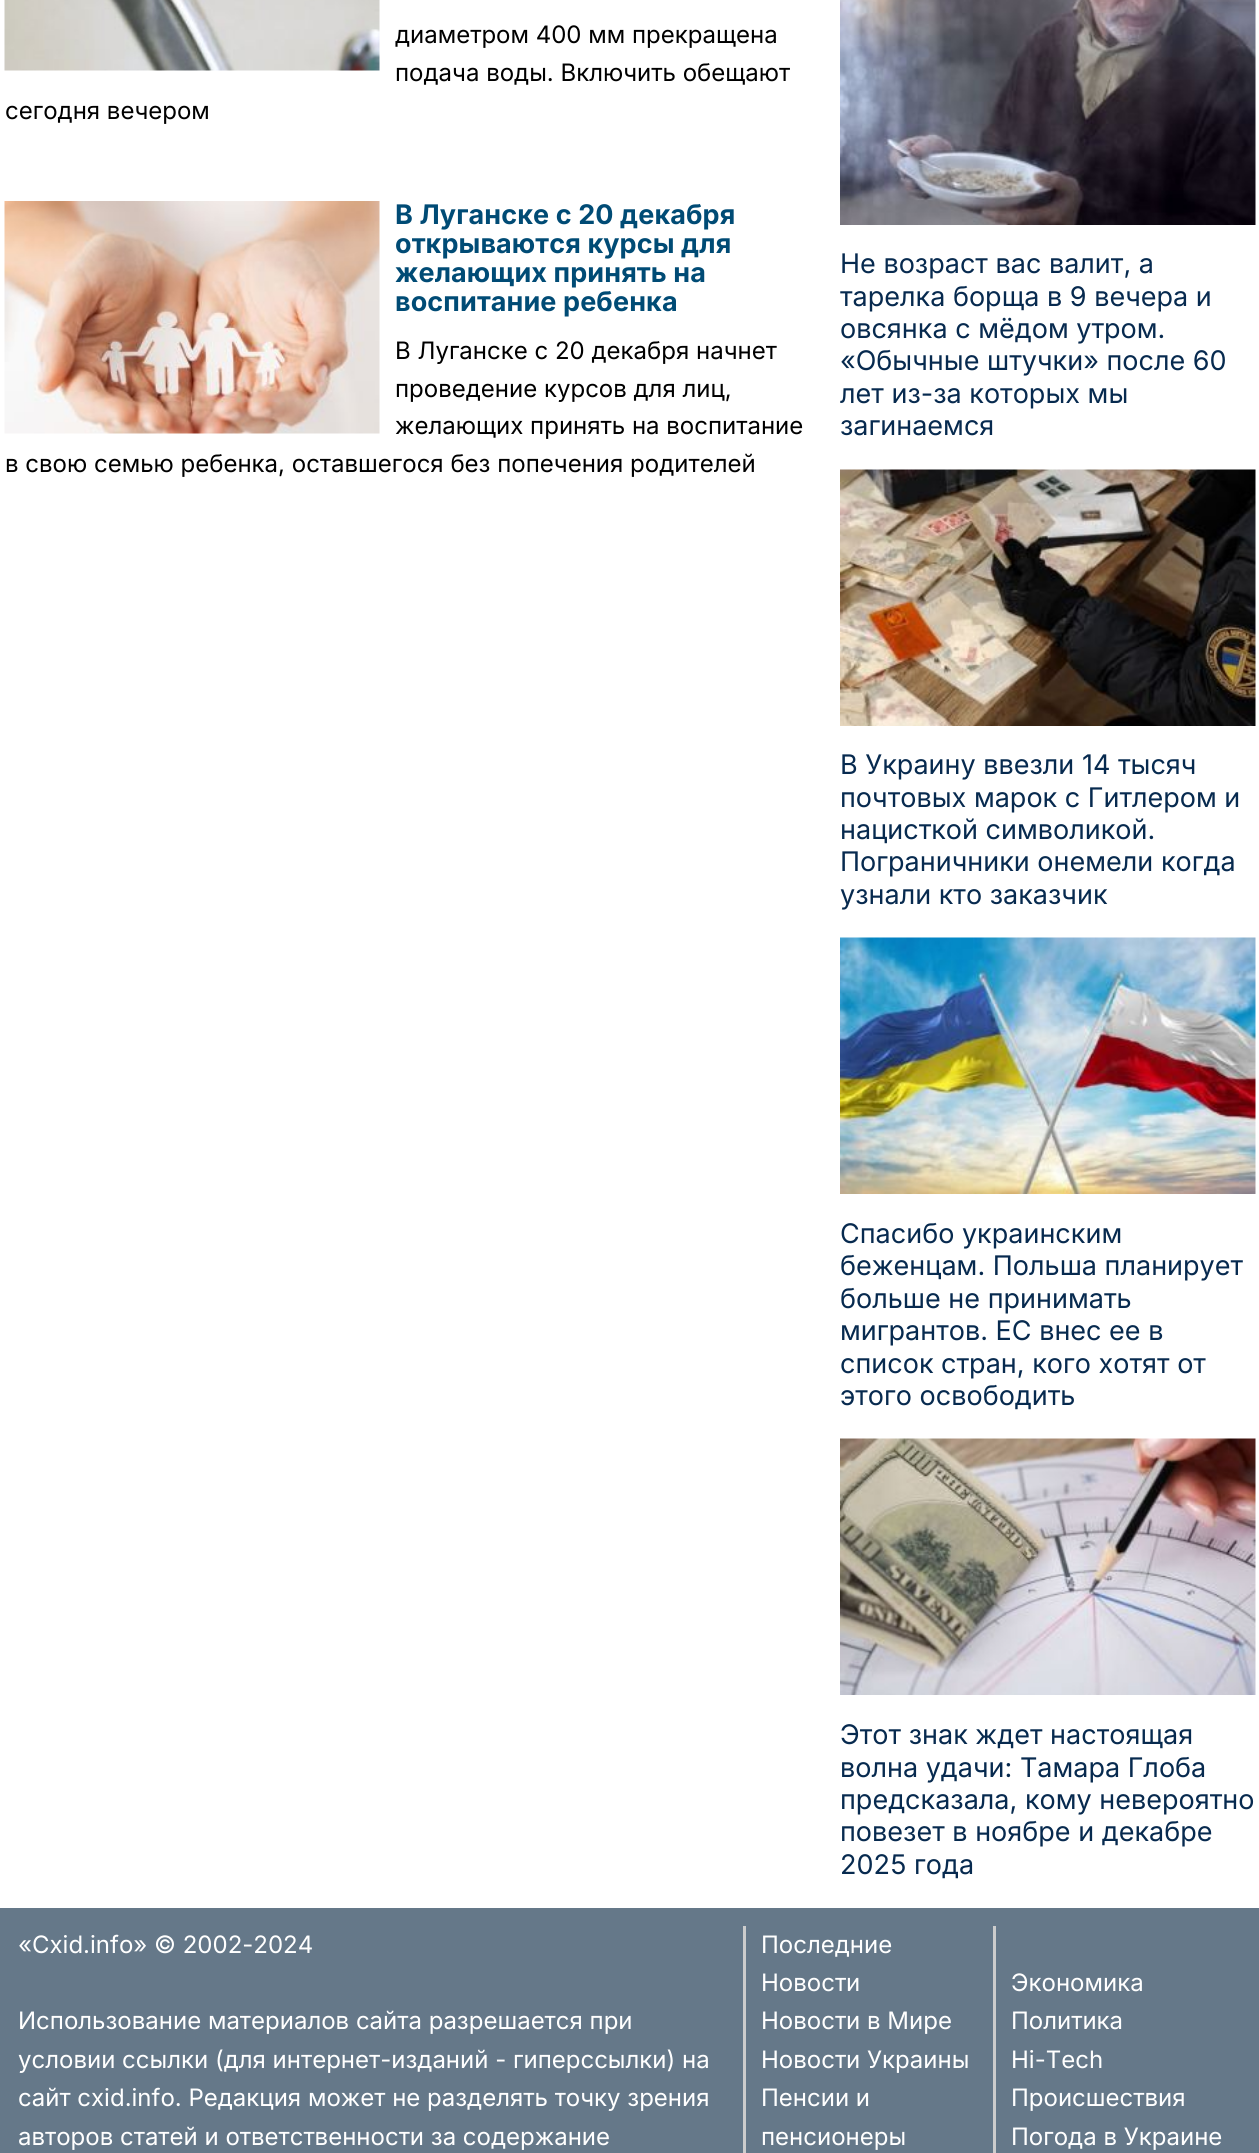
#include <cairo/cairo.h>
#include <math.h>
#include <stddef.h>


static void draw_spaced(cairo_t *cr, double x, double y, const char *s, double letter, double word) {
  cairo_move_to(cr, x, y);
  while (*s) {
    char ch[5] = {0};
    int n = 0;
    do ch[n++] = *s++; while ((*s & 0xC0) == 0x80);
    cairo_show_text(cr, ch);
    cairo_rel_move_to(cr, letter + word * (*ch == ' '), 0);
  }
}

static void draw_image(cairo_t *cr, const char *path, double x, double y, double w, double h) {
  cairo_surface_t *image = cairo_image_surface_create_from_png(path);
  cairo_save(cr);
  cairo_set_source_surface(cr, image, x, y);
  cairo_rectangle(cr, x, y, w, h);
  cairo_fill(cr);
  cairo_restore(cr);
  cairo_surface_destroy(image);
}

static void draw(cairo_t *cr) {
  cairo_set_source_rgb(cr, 1, 1, 1);
  cairo_paint(cr);
  draw_image(cr, "images/1.png", 4, 0, 376, 71);
  draw_image(cr, "images/2.png", 4, 201, 376, 233);
  draw_image(cr, "images/3.png", 840, 0, 416, 225);
  draw_image(cr, "images/4.png", 840, 469, 416, 257);
  draw_image(cr, "images/5.png", 840, 937, 416, 257);
  draw_image(cr, "images/6.png", 840, 1438, 416, 257);
  cairo_set_source_rgb(cr, 101 / 255.0, 120 / 255.0, 137 / 255.0);
  cairo_rectangle(cr, 0, 1908, 1259, 245);
  cairo_fill(cr);
  cairo_set_source_rgb(cr, 204 / 255.0, 204 / 255.0, 204 / 255.0);
  cairo_rectangle(cr, 743, 1926, 3, 227);
  cairo_fill(cr);
  cairo_rectangle(cr, 993, 1926, 3, 227);
  cairo_fill(cr);
  cairo_select_font_face(cr, "Inter", CAIRO_FONT_SLANT_NORMAL, CAIRO_FONT_WEIGHT_NORMAL);
  cairo_set_font_size(cr, 24);
  cairo_set_source_rgb(cr, 0, 0, 0);
  cairo_move_to(cr, 395, 43);
  cairo_show_text(cr, "диаметром 400 мм прекращена");
  cairo_move_to(cr, 395, 81);
  cairo_show_text(cr, "подача воды. Включить обещают");
  cairo_move_to(cr, 5, 119);
  cairo_show_text(cr, "сегодня вечером");
  cairo_select_font_face(cr, "Inter", CAIRO_FONT_SLANT_NORMAL, CAIRO_FONT_WEIGHT_BOLD);
  cairo_set_font_size(cr, 27);
  cairo_set_source_rgb(cr, 0, 75 / 255.0, 117 / 255.0);
  draw_spaced(cr, 395, 224, "В Луганске с 20 декабря", 0.1, 0);
  draw_spaced(cr, 395, 253, "открываются курсы для", 0.1, 0);
  draw_spaced(cr, 395, 282, "желающих принять на", 0.1, 0);
  draw_spaced(cr, 395, 311, "воспитание ребенка", 0.1, 0);
  cairo_select_font_face(cr, "Inter", CAIRO_FONT_SLANT_NORMAL, CAIRO_FONT_WEIGHT_NORMAL);
  cairo_set_font_size(cr, 24);
  cairo_set_source_rgb(cr, 0, 0, 0);
  cairo_move_to(cr, 395, 359);
  cairo_show_text(cr, "В Луганске с 20 декабря начнет");
  cairo_move_to(cr, 395, 397);
  cairo_show_text(cr, "проведение курсов для лиц,");
  cairo_move_to(cr, 395, 434);
  cairo_show_text(cr, "желающих принять на воспитание");
  cairo_move_to(cr, 5, 472);
  cairo_show_text(cr, "в свою семью ребенка, оставшегося без попечения родителей");
  cairo_set_font_size(cr, 27);
  cairo_set_source_rgb(cr, 7 / 255.0, 42 / 255.0, 79 / 255.0);
  cairo_move_to(cr, 840, 273);
  cairo_show_text(cr, "Не возраст вас валит, а");
  cairo_move_to(cr, 840, 306);
  cairo_show_text(cr, "тарелка борща в 9 вечера и");
  cairo_move_to(cr, 840, 338);
  cairo_show_text(cr, "овсянка с мёдом утром.");
  cairo_move_to(cr, 840, 370);
  cairo_show_text(cr, "«Обычные штучки» после 60");
  cairo_move_to(cr, 840, 403);
  cairo_show_text(cr, "лет из-за которых мы");
  cairo_move_to(cr, 840, 435);
  cairo_show_text(cr, "загинаемся");
  cairo_move_to(cr, 840, 774);
  cairo_show_text(cr, "В Украину ввезли 14 тысяч");
  cairo_move_to(cr, 840, 807);
  cairo_show_text(cr, "почтовых марок с Гитлером и");
  cairo_move_to(cr, 840, 839);
  cairo_show_text(cr, "нацисткой символикой.");
  cairo_move_to(cr, 840, 871);
  cairo_show_text(cr, "Пограничники онемели когда");
  cairo_move_to(cr, 840, 904);
  cairo_show_text(cr, "узнали кто заказчик");
  cairo_move_to(cr, 840, 1243);
  cairo_show_text(cr, "Спасибо украинским");
  cairo_move_to(cr, 840, 1275);
  cairo_show_text(cr, "беженцам. Польша планирует");
  cairo_move_to(cr, 840, 1308);
  cairo_show_text(cr, "больше не принимать");
  cairo_move_to(cr, 840, 1340);
  cairo_show_text(cr, "мигрантов. ЕС внес ее в");
  cairo_move_to(cr, 840, 1373);
  cairo_show_text(cr, "список стран, кого хотят от");
  cairo_move_to(cr, 840, 1405);
  cairo_show_text(cr, "этого освободить");
  cairo_move_to(cr, 840, 1744);
  cairo_show_text(cr, "Этот знак ждет настоящая");
  cairo_move_to(cr, 840, 1777);
  cairo_show_text(cr, "волна удачи: Тамара Глоба");
  cairo_move_to(cr, 840, 1809);
  cairo_show_text(cr, "предсказала, кому невероятно");
  cairo_move_to(cr, 840, 1841);
  cairo_show_text(cr, "повезет в ноябре и декабре");
  cairo_move_to(cr, 840, 1874);
  cairo_show_text(cr, "2025 года");
  cairo_set_font_size(cr, 24);
  cairo_set_source_rgb(cr, 1, 1, 1);
  cairo_move_to(cr, 18, 1953);
  cairo_show_text(cr, "«Cxid.info» © 2002-2024");
  cairo_move_to(cr, 18, 2029);
  cairo_show_text(cr, "Использование материалов сайта разрешается при");
  cairo_move_to(cr, 18, 2068);
  cairo_show_text(cr, "условии ссылки (для интернет-изданий - гиперссылки) на");
  cairo_move_to(cr, 18, 2106);
  cairo_show_text(cr, "сайт cxid.info. Редакция может не разделять точку зрения");
  cairo_move_to(cr, 18, 2145);
  cairo_show_text(cr, "авторов статей и ответственности за содержание");
  cairo_move_to(cr, 761, 1953);
  cairo_show_text(cr, "Последние");
  cairo_move_to(cr, 761, 1991);
  cairo_show_text(cr, "Новости");
  cairo_move_to(cr, 761, 2029);
  cairo_show_text(cr, "Новости в Мире");
  cairo_move_to(cr, 761, 2068);
  cairo_show_text(cr, "Новости Украины");
  cairo_move_to(cr, 761, 2106);
  cairo_show_text(cr, "Пенсии и");
  cairo_move_to(cr, 761, 2145);
  cairo_show_text(cr, "пенсионеры");
  cairo_move_to(cr, 1011, 1991);
  cairo_show_text(cr, "Экономика");
  cairo_move_to(cr, 1011, 2029);
  cairo_show_text(cr, "Политика");
  cairo_move_to(cr, 1011, 2068);
  cairo_show_text(cr, "Hi-Tech");
  cairo_move_to(cr, 1011, 2106);
  cairo_show_text(cr, "Происшествия");
  cairo_move_to(cr, 1011, 2145);
  cairo_show_text(cr, "Погода в Украине");
}

int main(void) {
  cairo_surface_t *surface = cairo_image_surface_create(CAIRO_FORMAT_RGB24, 1259, 2153);
  cairo_t *cr = cairo_create(surface);
  cairo_font_options_t *options = cairo_font_options_create();
  cairo_font_options_set_hint_metrics(options, CAIRO_HINT_METRICS_OFF);
  cairo_font_options_set_hint_style(options, CAIRO_HINT_STYLE_NONE);
  cairo_set_font_options(cr, options);
  cairo_set_miter_limit(cr, 4);
  draw(cr);
  cairo_surface_write_to_png(surface, "out.png");
  cairo_font_options_destroy(options);
  cairo_destroy(cr);
  cairo_surface_destroy(surface);
  return 0;
}
